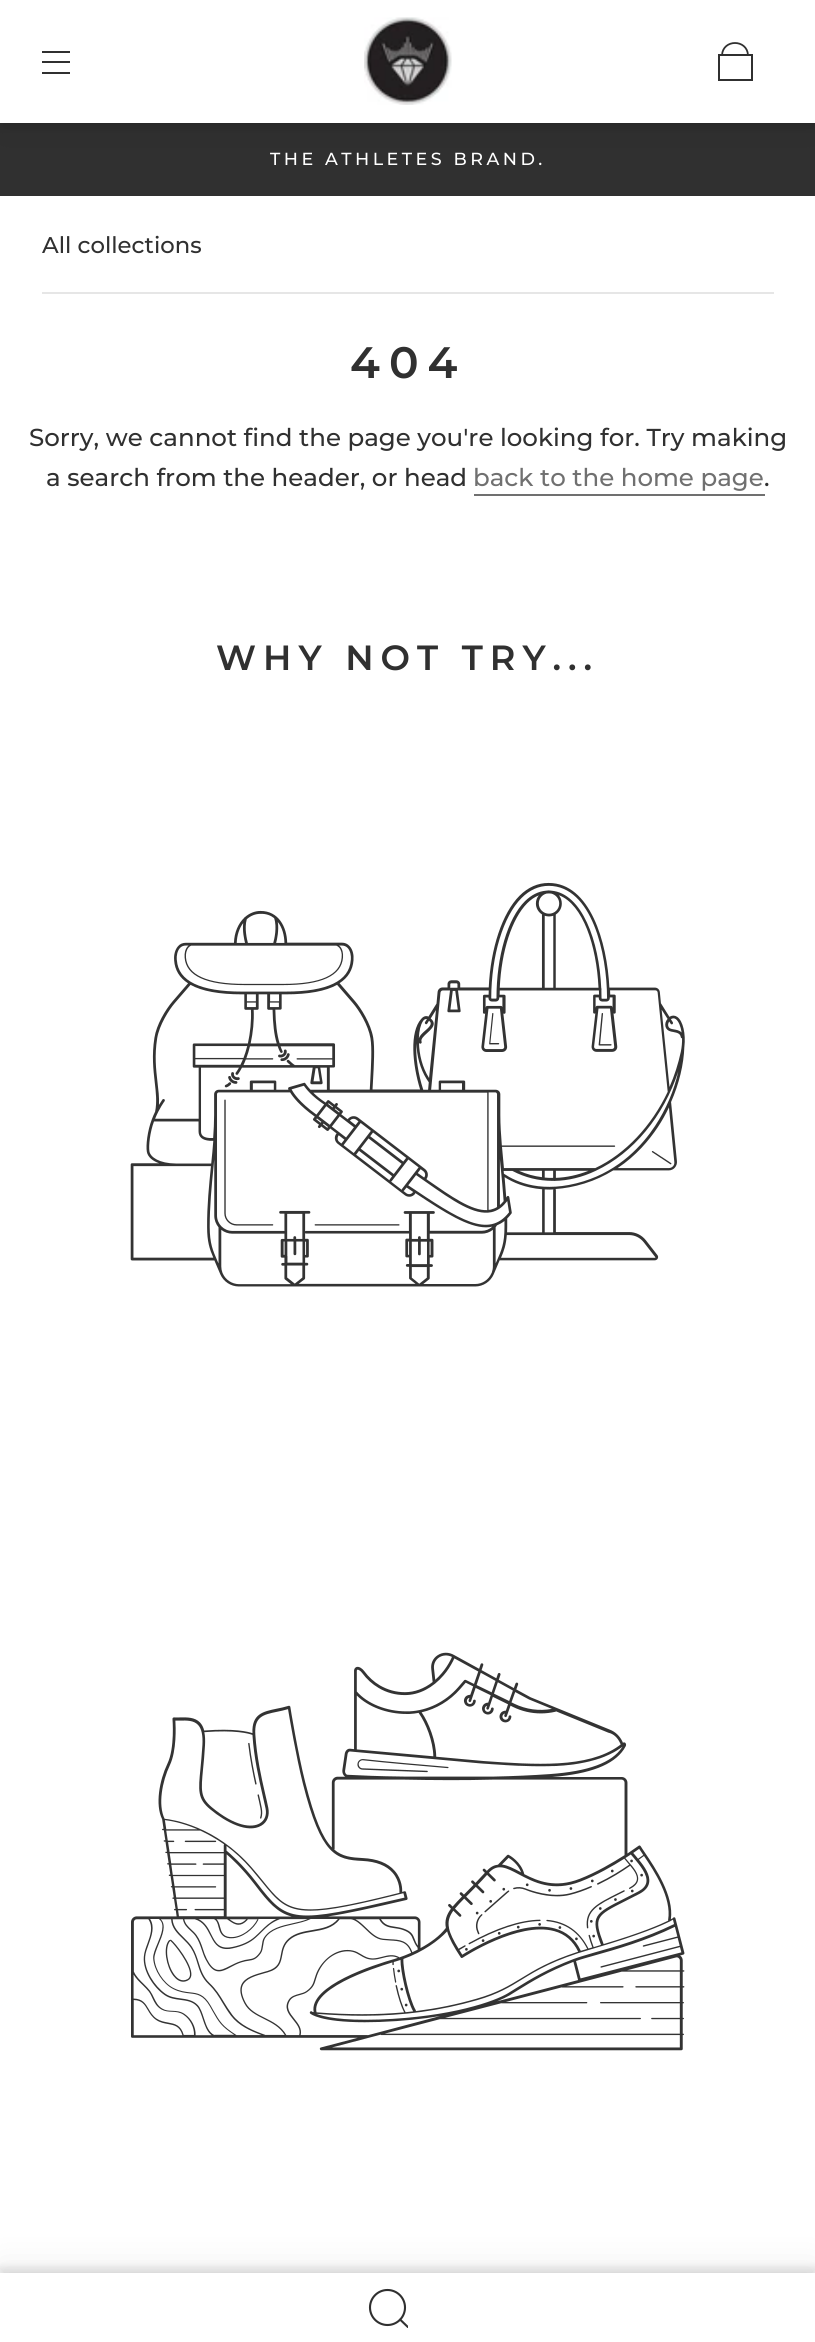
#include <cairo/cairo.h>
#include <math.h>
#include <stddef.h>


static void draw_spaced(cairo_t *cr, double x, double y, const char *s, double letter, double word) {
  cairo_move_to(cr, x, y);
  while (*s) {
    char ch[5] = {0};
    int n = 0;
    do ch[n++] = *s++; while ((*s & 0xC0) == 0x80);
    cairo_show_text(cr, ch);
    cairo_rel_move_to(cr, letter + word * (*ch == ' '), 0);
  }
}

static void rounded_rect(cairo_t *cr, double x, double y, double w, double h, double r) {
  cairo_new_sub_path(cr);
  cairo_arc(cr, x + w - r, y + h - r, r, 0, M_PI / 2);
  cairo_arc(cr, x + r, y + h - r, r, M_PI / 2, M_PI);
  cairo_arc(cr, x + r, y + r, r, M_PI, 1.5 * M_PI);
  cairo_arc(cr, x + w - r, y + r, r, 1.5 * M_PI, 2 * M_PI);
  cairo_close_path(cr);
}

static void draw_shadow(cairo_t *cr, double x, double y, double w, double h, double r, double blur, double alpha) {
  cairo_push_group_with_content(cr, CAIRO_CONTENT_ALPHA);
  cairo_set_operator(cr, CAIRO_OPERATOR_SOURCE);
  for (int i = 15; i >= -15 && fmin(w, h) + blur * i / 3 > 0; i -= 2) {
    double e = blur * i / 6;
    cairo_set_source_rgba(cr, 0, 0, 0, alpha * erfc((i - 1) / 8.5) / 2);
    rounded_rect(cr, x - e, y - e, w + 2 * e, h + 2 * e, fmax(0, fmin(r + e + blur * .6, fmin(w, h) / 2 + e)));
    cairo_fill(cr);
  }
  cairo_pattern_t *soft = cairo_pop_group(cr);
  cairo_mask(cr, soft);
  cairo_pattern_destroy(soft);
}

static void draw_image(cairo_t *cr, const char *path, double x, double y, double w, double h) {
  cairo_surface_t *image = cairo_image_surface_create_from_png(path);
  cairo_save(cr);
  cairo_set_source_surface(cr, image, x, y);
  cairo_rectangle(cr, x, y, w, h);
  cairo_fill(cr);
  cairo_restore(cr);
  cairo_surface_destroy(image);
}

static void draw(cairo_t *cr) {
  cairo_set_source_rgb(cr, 1, 1, 1);
  cairo_paint(cr);
  cairo_set_source_rgb(cr, 48 / 255.0, 48 / 255.0, 48 / 255.0);
  cairo_rectangle(cr, 0, 123, 815, 73);
  cairo_fill(cr);
  cairo_set_source_rgb(cr, 0, 0, 0);
  draw_shadow(cr, 0, 11, 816, 122, 0, 17.5, 0.06);
  draw_shadow(cr, 0, 5, 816, 123, 0, 4.5, 0.12);
  cairo_set_source_rgb(cr, 1, 1, 1);
  cairo_rectangle(cr, 0, 0, 815, 123);
  cairo_fill(cr);
  cairo_set_source_rgb(cr, 48 / 255.0, 48 / 255.0, 48 / 255.0);
  cairo_rectangle(cr, 42, 51, 28, 2);
  cairo_fill(cr);
  cairo_rectangle(cr, 42, 61, 28, 2);
  cairo_fill(cr);
  cairo_rectangle(cr, 42, 72, 28, 2);
  cairo_fill(cr);
  draw_image(cr, "images/1.png", 364, 17, 88, 88);
  cairo_new_path(cr);
  cairo_move_to(cr, 722, 55);
  cairo_curve_to(cr, 723, 39, 747, 39, 748, 55);
  cairo_close_path(cr);
  cairo_set_line_width(cr, 1.8);
  cairo_stroke(cr);
  cairo_rectangle(cr, 719, 55, 33, 25);
  cairo_set_line_width(cr, 2);
  cairo_stroke(cr);
  cairo_set_source_rgb(cr, 230 / 255.0, 230 / 255.0, 230 / 255.0);
  cairo_rectangle(cr, 42, 292, 732, 2);
  cairo_fill(cr);
  cairo_set_source_rgb(cr, 112 / 255.0, 112 / 255.0, 112 / 255.0);
  cairo_rectangle(cr, 474, 494, 291, 2);
  cairo_fill(cr);
  draw_image(cr, "images/2.png", 130, 882, 555, 405);
  draw_image(cr, "images/3.png", 131, 1652, 554, 399);
  cairo_set_source_rgb(cr, 0, 0, 0);
  draw_shadow(cr, 0, 2263, 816, 70, 0, 17.5, 0.06);
  draw_shadow(cr, 0, 2268, 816, 70, 0, 4.5, 0.12);
  cairo_set_source_rgb(cr, 1, 1, 1);
  cairo_rectangle(cr, 0, 2273, 815, 69);
  cairo_fill(cr);
  cairo_arc(cr, 387.5, 2307.5, 17.5, 0, 2 * M_PI);
  cairo_set_source_rgb(cr, 48 / 255.0, 48 / 255.0, 48 / 255.0);
  cairo_set_line_width(cr, 2.1);
  cairo_stroke(cr);
  cairo_save(cr);
  cairo_rectangle(cr, 369, 2289, 39, 39);
  cairo_clip(cr);
  cairo_new_path(cr);
  cairo_move_to(cr, 399.5, 2319);
  cairo_line_to(cr, 412, 2331);
  cairo_stroke(cr);
  cairo_restore(cr);
  cairo_select_font_face(cr, "Montserrat Medium", CAIRO_FONT_SLANT_NORMAL, CAIRO_FONT_WEIGHT_NORMAL);
  cairo_set_font_size(cr, 17.5);
  cairo_set_source_rgb(cr, 1, 1, 1);
  draw_spaced(cr, 270, 165, "THE ATHLETES BRAND.", 3.5, 0);
  cairo_set_font_size(cr, 22.75);
  cairo_set_source_rgb(cr, 48 / 255.0, 48 / 255.0, 48 / 255.0);
  cairo_move_to(cr, 42, 253);
  cairo_show_text(cr, "All collections");
  cairo_select_font_face(cr, "Montserrat SemiBold", CAIRO_FONT_SLANT_NORMAL, CAIRO_FONT_WEIGHT_NORMAL);
  cairo_set_font_size(cr, 44);
  draw_spaced(cr, 350, 378, "404", 9, 0);
  cairo_select_font_face(cr, "Montserrat Medium", CAIRO_FONT_SLANT_NORMAL, CAIRO_FONT_WEIGHT_NORMAL);
  cairo_set_font_size(cr, 24.5);
  cairo_move_to(cr, 29, 446);
  cairo_show_text(cr, "Sorry, we cannot find the page you're looking for. Try making");
  cairo_move_to(cr, 46, 486);
  cairo_show_text(cr, "a search from the header, or head");
  cairo_set_source_rgb(cr, 112 / 255.0, 112 / 255.0, 112 / 255.0);
  cairo_move_to(cr, 473, 486);
  cairo_show_text(cr, "back to the home page");
  cairo_set_source_rgb(cr, 48 / 255.0, 48 / 255.0, 48 / 255.0);
  cairo_move_to(cr, 764, 486);
  cairo_show_text(cr, ".");
  cairo_select_font_face(cr, "Montserrat SemiBold", CAIRO_FONT_SLANT_NORMAL, CAIRO_FONT_WEIGHT_NORMAL);
  cairo_set_font_size(cr, 35);
  draw_spaced(cr, 216, 670, "WHY NOT TRY...", 7, 0);
}

int main(void) {
  cairo_surface_t *surface = cairo_image_surface_create(CAIRO_FORMAT_RGB24, 815, 2342);
  cairo_t *cr = cairo_create(surface);
  cairo_font_options_t *options = cairo_font_options_create();
  cairo_font_options_set_hint_metrics(options, CAIRO_HINT_METRICS_OFF);
  cairo_font_options_set_hint_style(options, CAIRO_HINT_STYLE_NONE);
  cairo_set_font_options(cr, options);
  cairo_set_miter_limit(cr, 4);
  draw(cr);
  cairo_surface_write_to_png(surface, "out.png");
  cairo_font_options_destroy(options);
  cairo_destroy(cr);
  cairo_surface_destroy(surface);
  return 0;
}
